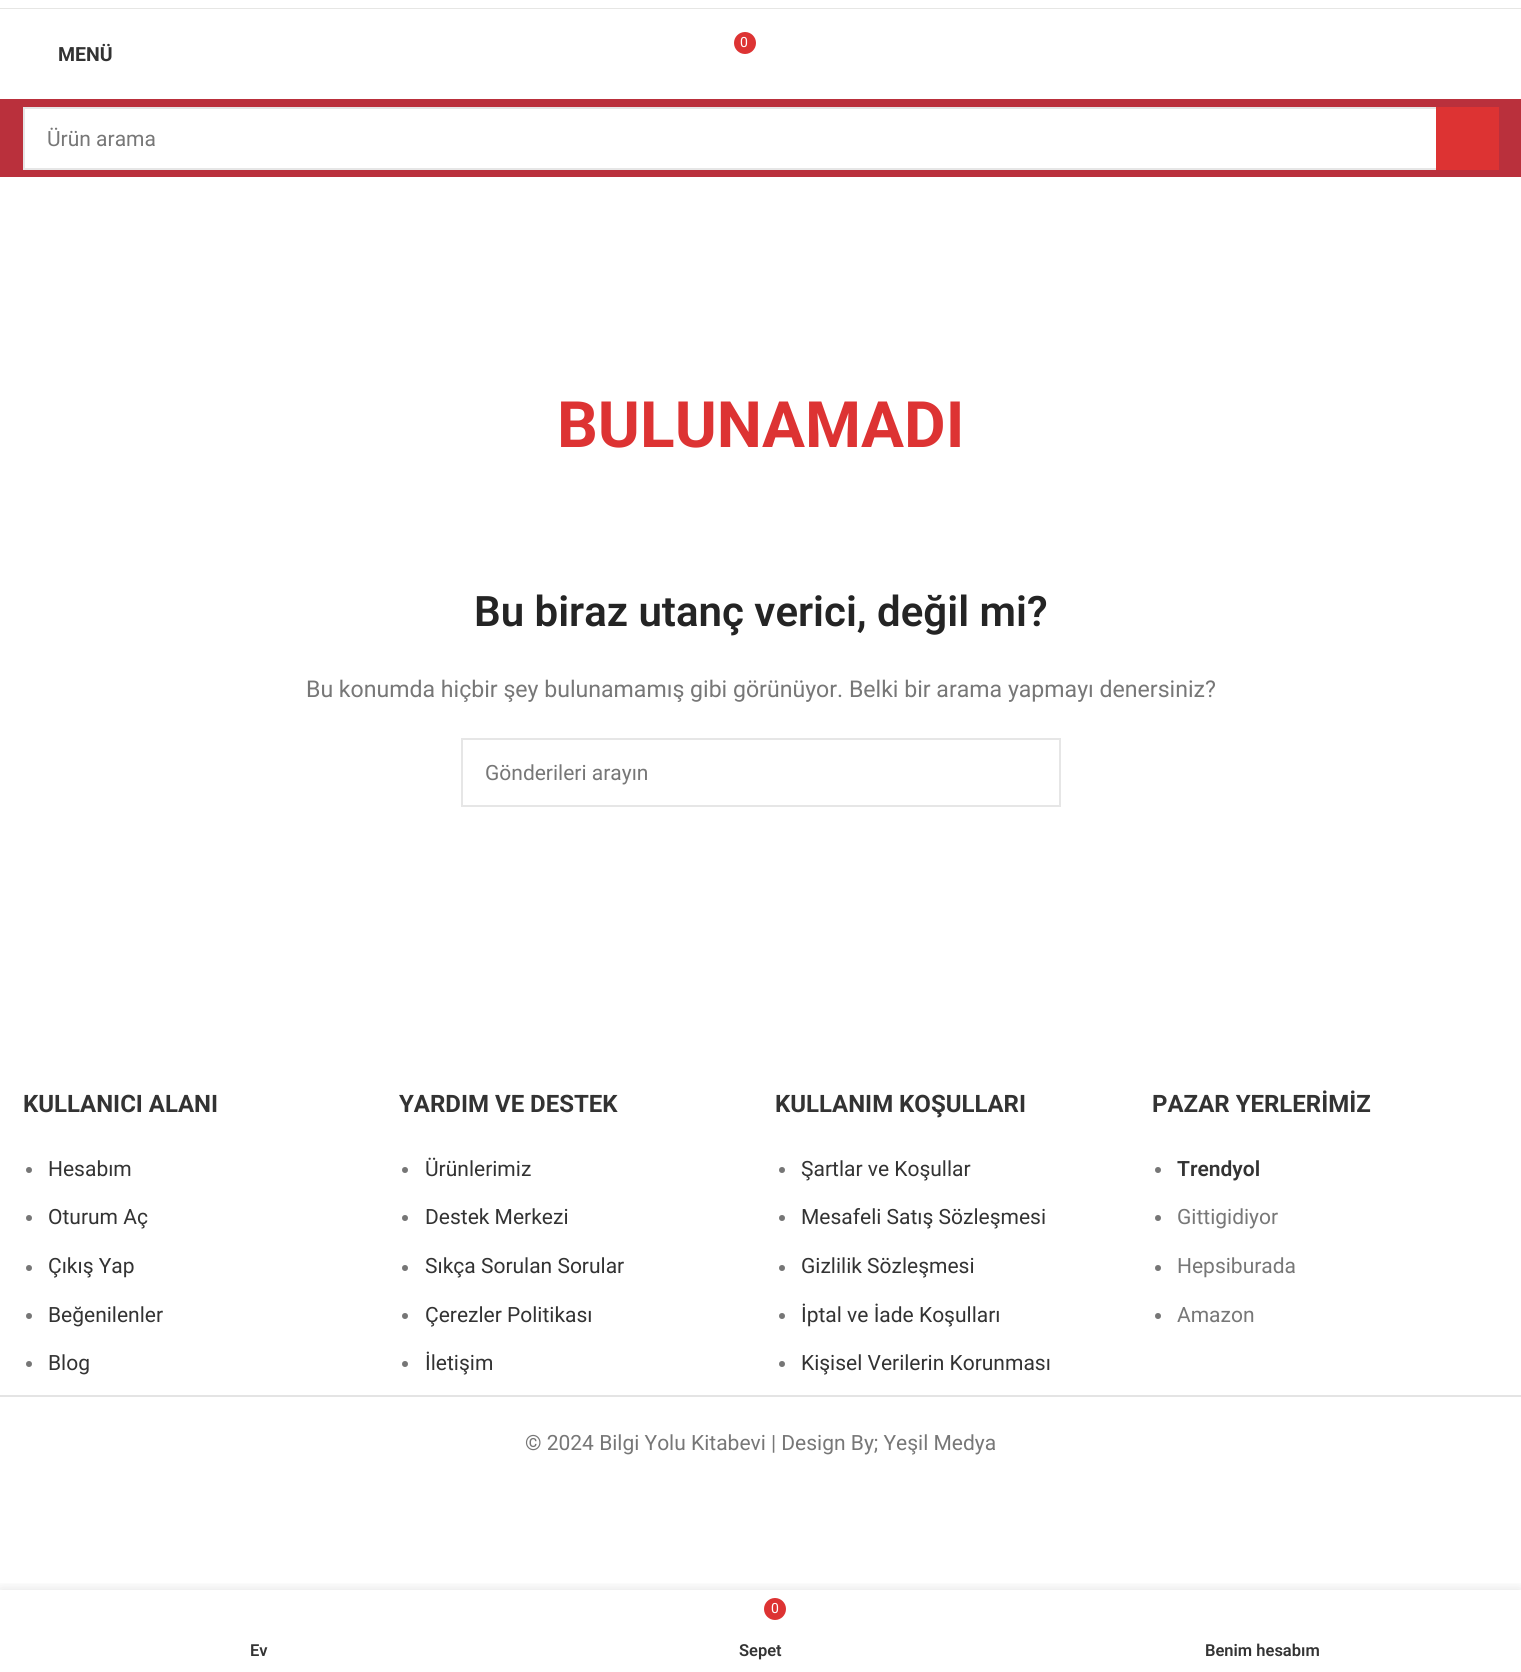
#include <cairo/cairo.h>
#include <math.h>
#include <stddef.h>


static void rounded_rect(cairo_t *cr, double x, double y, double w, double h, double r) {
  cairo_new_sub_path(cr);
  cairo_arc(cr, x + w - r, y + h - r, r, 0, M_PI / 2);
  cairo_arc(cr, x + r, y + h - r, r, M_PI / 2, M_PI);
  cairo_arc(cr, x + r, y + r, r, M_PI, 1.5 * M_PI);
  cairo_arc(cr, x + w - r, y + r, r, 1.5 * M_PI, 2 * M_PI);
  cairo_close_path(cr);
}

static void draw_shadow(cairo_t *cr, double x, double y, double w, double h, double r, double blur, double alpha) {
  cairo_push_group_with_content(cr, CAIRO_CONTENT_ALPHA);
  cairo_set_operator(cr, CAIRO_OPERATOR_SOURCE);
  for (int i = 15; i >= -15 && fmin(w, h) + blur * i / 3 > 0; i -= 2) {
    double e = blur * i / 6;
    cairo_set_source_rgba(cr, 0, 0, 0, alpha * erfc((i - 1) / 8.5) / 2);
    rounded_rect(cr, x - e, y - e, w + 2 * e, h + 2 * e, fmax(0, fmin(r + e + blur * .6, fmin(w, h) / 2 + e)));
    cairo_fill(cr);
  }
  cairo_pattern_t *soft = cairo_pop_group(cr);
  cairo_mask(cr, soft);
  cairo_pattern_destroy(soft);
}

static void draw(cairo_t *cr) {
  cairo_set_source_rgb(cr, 1, 1, 1);
  cairo_paint(cr);
  cairo_set_source_rgb(cr, 230 / 255.0, 230 / 255.0, 228 / 255.0);
  cairo_rectangle(cr, 0, 8, 1521, 1);
  cairo_fill(cr);
  cairo_set_source_rgb(cr, 221 / 255.0, 51 / 255.0, 51 / 255.0);
  cairo_arc(cr, 745, 43, 11, 0, 2 * M_PI);
  cairo_fill(cr);
  cairo_set_source_rgb(cr, 186 / 255.0, 48 / 255.0, 60 / 255.0);
  cairo_rectangle(cr, 0, 99, 1521, 78);
  cairo_fill(cr);
  cairo_set_source_rgb(cr, 1, 1, 1);
  cairo_rectangle(cr, 25, 109, 1411, 59);
  cairo_fill(cr);
  cairo_rectangle(cr, 24, 108, 1474, 61);
  cairo_set_source_rgb(cr, 230 / 255.0, 230 / 255.0, 230 / 255.0);
  cairo_stroke(cr);
  cairo_set_source_rgb(cr, 221 / 255.0, 51 / 255.0, 51 / 255.0);
  cairo_rectangle(cr, 1436, 107, 63, 63);
  cairo_fill(cr);
  cairo_rectangle(cr, 462, 739, 598, 67);
  cairo_set_source_rgb(cr, 230 / 255.0, 230 / 255.0, 230 / 255.0);
  cairo_stroke(cr);
  cairo_set_source_rgb(cr, 118 / 255.0, 118 / 255.0, 118 / 255.0);
  cairo_arc(cr, 29, 1170, 3, 0, 2 * M_PI);
  cairo_fill(cr);
  cairo_arc(cr, 29, 1218, 3, 0, 2 * M_PI);
  cairo_fill(cr);
  cairo_arc(cr, 29, 1268, 3, 0, 2 * M_PI);
  cairo_fill(cr);
  cairo_arc(cr, 29, 1316, 3, 0, 2 * M_PI);
  cairo_fill(cr);
  cairo_arc(cr, 29, 1364, 3, 0, 2 * M_PI);
  cairo_fill(cr);
  cairo_arc(cr, 405, 1170, 3, 0, 2 * M_PI);
  cairo_fill(cr);
  cairo_arc(cr, 405, 1218, 3, 0, 2 * M_PI);
  cairo_fill(cr);
  cairo_arc(cr, 405, 1268, 3, 0, 2 * M_PI);
  cairo_fill(cr);
  cairo_arc(cr, 405, 1316, 3, 0, 2 * M_PI);
  cairo_fill(cr);
  cairo_arc(cr, 405, 1364, 3, 0, 2 * M_PI);
  cairo_fill(cr);
  cairo_arc(cr, 782, 1170, 3, 0, 2 * M_PI);
  cairo_fill(cr);
  cairo_arc(cr, 782, 1218, 3, 0, 2 * M_PI);
  cairo_fill(cr);
  cairo_arc(cr, 782, 1268, 3, 0, 2 * M_PI);
  cairo_fill(cr);
  cairo_arc(cr, 782, 1316, 3, 0, 2 * M_PI);
  cairo_fill(cr);
  cairo_arc(cr, 782, 1364, 3, 0, 2 * M_PI);
  cairo_fill(cr);
  cairo_arc(cr, 1158, 1170, 3, 0, 2 * M_PI);
  cairo_fill(cr);
  cairo_arc(cr, 1158, 1218, 3, 0, 2 * M_PI);
  cairo_fill(cr);
  cairo_arc(cr, 1158, 1268, 3, 0, 2 * M_PI);
  cairo_fill(cr);
  cairo_arc(cr, 1158, 1316, 3, 0, 2 * M_PI);
  cairo_fill(cr);
  cairo_set_source_rgb(cr, 228 / 255.0, 228 / 255.0, 228 / 255.0);
  cairo_rectangle(cr, 0, 1395, 1521, 2);
  cairo_fill(cr);
  cairo_save(cr);
  cairo_rectangle(cr, 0, 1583, 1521, 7);
  cairo_clip(cr);
  cairo_set_source_rgb(cr, 0, 0, 0);
  draw_shadow(cr, 0, 1590, 1521, 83, 0, 7, 0.12);
  cairo_restore(cr);
  cairo_set_source_rgb(cr, 221 / 255.0, 51 / 255.0, 51 / 255.0);
  cairo_arc(cr, 775, 1609, 11, 0, 2 * M_PI);
  cairo_fill(cr);
  cairo_select_font_face(cr, "Roboto", CAIRO_FONT_SLANT_NORMAL, CAIRO_FONT_WEIGHT_BOLD);
  cairo_set_font_size(cr, 19.5);
  cairo_set_source_rgb(cr, 51 / 255.0, 51 / 255.0, 51 / 255.0);
  cairo_move_to(cr, 58, 61);
  cairo_show_text(cr, "MENÜ");
  cairo_select_font_face(cr, "Roboto", CAIRO_FONT_SLANT_NORMAL, CAIRO_FONT_WEIGHT_NORMAL);
  cairo_set_font_size(cr, 14);
  cairo_set_source_rgb(cr, 1, 1, 1);
  cairo_move_to(cr, 740, 47);
  cairo_show_text(cr, "0");
  cairo_set_font_size(cr, 21);
  cairo_set_source_rgb(cr, 119 / 255.0, 119 / 255.0, 119 / 255.0);
  cairo_move_to(cr, 47, 146);
  cairo_show_text(cr, "Ürün arama");
  cairo_select_font_face(cr, "Roboto", CAIRO_FONT_SLANT_NORMAL, CAIRO_FONT_WEIGHT_BOLD);
  cairo_set_font_size(cr, 64);
  cairo_set_source_rgb(cr, 221 / 255.0, 51 / 255.0, 51 / 255.0);
  cairo_move_to(cr, 557, 447);
  cairo_show_text(cr, "BULUNAMADI");
  cairo_select_font_face(cr, "Roboto SemiBold", CAIRO_FONT_SLANT_NORMAL, CAIRO_FONT_WEIGHT_NORMAL);
  cairo_set_font_size(cr, 42);
  cairo_set_source_rgb(cr, 36 / 255.0, 36 / 255.0, 36 / 255.0);
  cairo_move_to(cr, 474, 626);
  cairo_show_text(cr, "Bu biraz utanç verici, değil mi?");
  cairo_select_font_face(cr, "Roboto", CAIRO_FONT_SLANT_NORMAL, CAIRO_FONT_WEIGHT_NORMAL);
  cairo_set_font_size(cr, 23.1);
  cairo_set_source_rgb(cr, 119 / 255.0, 119 / 255.0, 119 / 255.0);
  cairo_move_to(cr, 306, 697);
  cairo_show_text(cr, "Bu konumda hiçbir şey bulunamamış gibi görünüyor. Belki bir arama yapmayı denersiniz?");
  cairo_set_font_size(cr, 21);
  cairo_move_to(cr, 485, 780);
  cairo_show_text(cr, "Gönderileri arayın");
  cairo_select_font_face(cr, "Roboto", CAIRO_FONT_SLANT_NORMAL, CAIRO_FONT_WEIGHT_BOLD);
  cairo_set_font_size(cr, 24);
  cairo_set_source_rgb(cr, 51 / 255.0, 51 / 255.0, 51 / 255.0);
  cairo_move_to(cr, 23, 1112);
  cairo_show_text(cr, "KULLANICI ALANI");
  cairo_select_font_face(cr, "Roboto", CAIRO_FONT_SLANT_NORMAL, CAIRO_FONT_WEIGHT_NORMAL);
  cairo_set_font_size(cr, 21);
  cairo_move_to(cr, 48, 1176);
  cairo_show_text(cr, "Hesabım");
  cairo_move_to(cr, 48, 1224);
  cairo_show_text(cr, "Oturum Aç");
  cairo_move_to(cr, 48, 1273);
  cairo_show_text(cr, "Çıkış Yap");
  cairo_move_to(cr, 48, 1322);
  cairo_show_text(cr, "Beğenilenler");
  cairo_move_to(cr, 48, 1370);
  cairo_show_text(cr, "Blog");
  cairo_select_font_face(cr, "Roboto", CAIRO_FONT_SLANT_NORMAL, CAIRO_FONT_WEIGHT_BOLD);
  cairo_set_font_size(cr, 24);
  cairo_move_to(cr, 399, 1112);
  cairo_show_text(cr, "YARDIM VE DESTEK");
  cairo_select_font_face(cr, "Roboto", CAIRO_FONT_SLANT_NORMAL, CAIRO_FONT_WEIGHT_NORMAL);
  cairo_set_font_size(cr, 21);
  cairo_move_to(cr, 425, 1176);
  cairo_show_text(cr, "Ürünlerimiz");
  cairo_move_to(cr, 425, 1224);
  cairo_show_text(cr, "Destek Merkezi");
  cairo_move_to(cr, 425, 1273);
  cairo_show_text(cr, "Sıkça Sorulan Sorular");
  cairo_move_to(cr, 425, 1322);
  cairo_show_text(cr, "Çerezler Politikası");
  cairo_move_to(cr, 425, 1370);
  cairo_show_text(cr, "İletişim");
  cairo_select_font_face(cr, "Roboto", CAIRO_FONT_SLANT_NORMAL, CAIRO_FONT_WEIGHT_BOLD);
  cairo_set_font_size(cr, 24);
  cairo_move_to(cr, 775, 1112);
  cairo_show_text(cr, "KULLANIM KOŞULLARI");
  cairo_select_font_face(cr, "Roboto", CAIRO_FONT_SLANT_NORMAL, CAIRO_FONT_WEIGHT_NORMAL);
  cairo_set_font_size(cr, 21);
  cairo_move_to(cr, 801, 1176);
  cairo_show_text(cr, "Şartlar ve Koşullar");
  cairo_move_to(cr, 801, 1224);
  cairo_show_text(cr, "Mesafeli Satış Sözleşmesi");
  cairo_move_to(cr, 801, 1273);
  cairo_show_text(cr, "Gizlilik Sözleşmesi");
  cairo_move_to(cr, 801, 1322);
  cairo_show_text(cr, "İptal ve İade Koşulları");
  cairo_move_to(cr, 801, 1370);
  cairo_show_text(cr, "Kişisel Verilerin Korunması");
  cairo_select_font_face(cr, "Roboto", CAIRO_FONT_SLANT_NORMAL, CAIRO_FONT_WEIGHT_BOLD);
  cairo_set_font_size(cr, 24);
  cairo_move_to(cr, 1152, 1112);
  cairo_show_text(cr, "PAZAR YERLERİMİZ");
  cairo_select_font_face(cr, "Roboto SemiBold", CAIRO_FONT_SLANT_NORMAL, CAIRO_FONT_WEIGHT_NORMAL);
  cairo_set_font_size(cr, 21);
  cairo_move_to(cr, 1177, 1176);
  cairo_show_text(cr, "Trendyol");
  cairo_select_font_face(cr, "Roboto", CAIRO_FONT_SLANT_NORMAL, CAIRO_FONT_WEIGHT_NORMAL);
  cairo_set_source_rgb(cr, 119 / 255.0, 119 / 255.0, 119 / 255.0);
  cairo_move_to(cr, 1177, 1224);
  cairo_show_text(cr, "Gittigidiyor");
  cairo_move_to(cr, 1177, 1273);
  cairo_show_text(cr, "Hepsiburada");
  cairo_move_to(cr, 1177, 1322);
  cairo_show_text(cr, "Amazon");
  cairo_move_to(cr, 525, 1450);
  cairo_show_text(cr, "© 2024 Bilgi Yolu Kitabevi | Design By; Yeşil Medya");
  cairo_select_font_face(cr, "Roboto SemiBold", CAIRO_FONT_SLANT_NORMAL, CAIRO_FONT_WEIGHT_NORMAL);
  cairo_set_font_size(cr, 16.5);
  cairo_set_source_rgb(cr, 51 / 255.0, 51 / 255.0, 51 / 255.0);
  cairo_move_to(cr, 250, 1656);
  cairo_show_text(cr, "Ev");
  cairo_select_font_face(cr, "Roboto", CAIRO_FONT_SLANT_NORMAL, CAIRO_FONT_WEIGHT_NORMAL);
  cairo_set_font_size(cr, 14);
  cairo_set_source_rgb(cr, 1, 1, 1);
  cairo_move_to(cr, 771, 1613);
  cairo_show_text(cr, "0");
  cairo_select_font_face(cr, "Roboto SemiBold", CAIRO_FONT_SLANT_NORMAL, CAIRO_FONT_WEIGHT_NORMAL);
  cairo_set_font_size(cr, 16.5);
  cairo_set_source_rgb(cr, 51 / 255.0, 51 / 255.0, 51 / 255.0);
  cairo_move_to(cr, 739, 1656);
  cairo_show_text(cr, "Sepet");
  cairo_move_to(cr, 1205, 1656);
  cairo_show_text(cr, "Benim hesabım");
}

int main(void) {
  cairo_surface_t *surface = cairo_image_surface_create(CAIRO_FORMAT_RGB24, 1521, 1672);
  cairo_t *cr = cairo_create(surface);
  cairo_font_options_t *options = cairo_font_options_create();
  cairo_font_options_set_hint_metrics(options, CAIRO_HINT_METRICS_OFF);
  cairo_font_options_set_hint_style(options, CAIRO_HINT_STYLE_NONE);
  cairo_set_font_options(cr, options);
  cairo_set_miter_limit(cr, 4);
  draw(cr);
  cairo_surface_write_to_png(surface, "out.png");
  cairo_font_options_destroy(options);
  cairo_destroy(cr);
  cairo_surface_destroy(surface);
  return 0;
}
